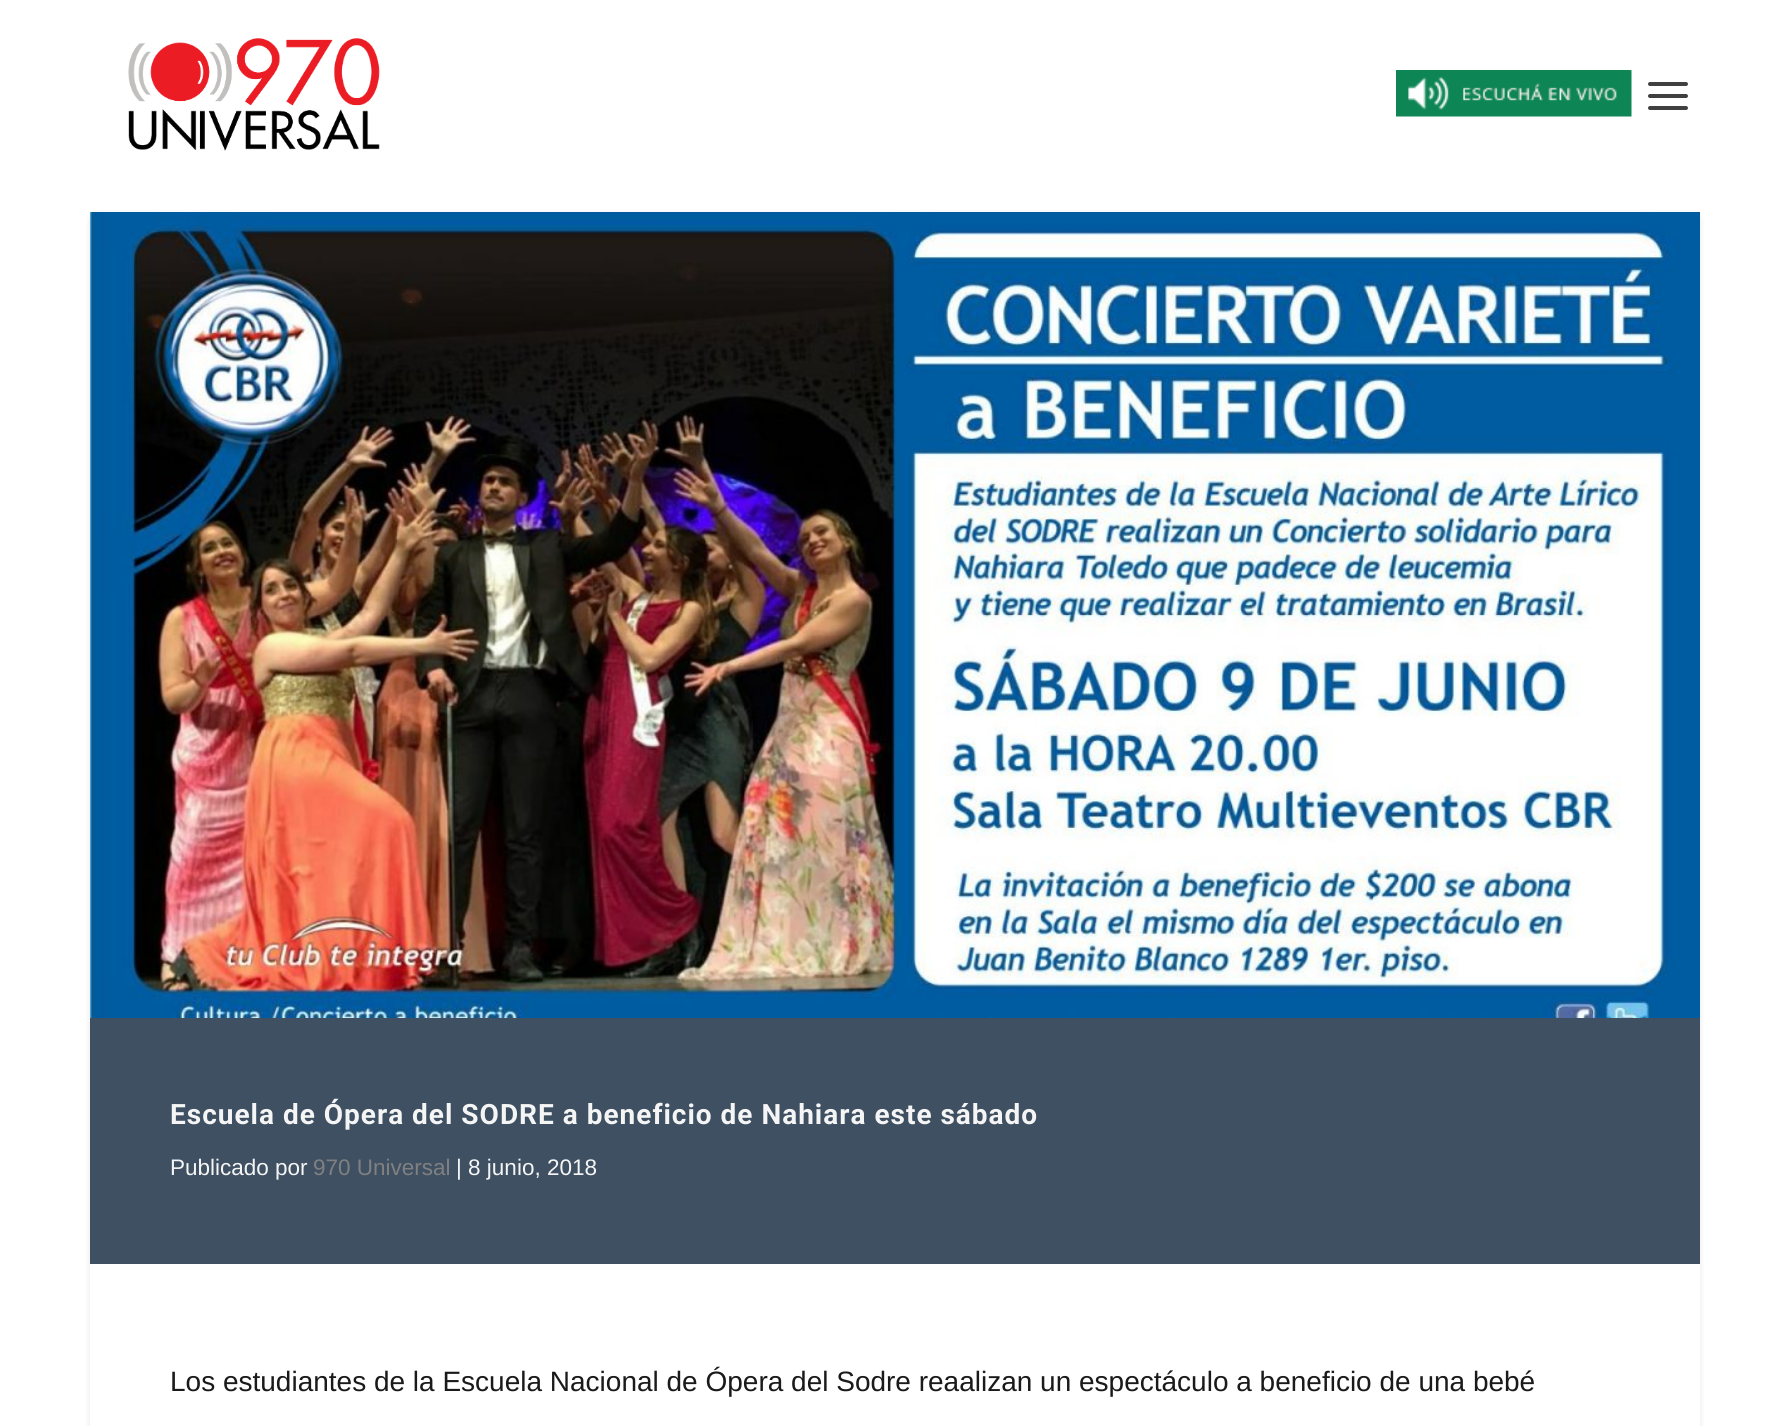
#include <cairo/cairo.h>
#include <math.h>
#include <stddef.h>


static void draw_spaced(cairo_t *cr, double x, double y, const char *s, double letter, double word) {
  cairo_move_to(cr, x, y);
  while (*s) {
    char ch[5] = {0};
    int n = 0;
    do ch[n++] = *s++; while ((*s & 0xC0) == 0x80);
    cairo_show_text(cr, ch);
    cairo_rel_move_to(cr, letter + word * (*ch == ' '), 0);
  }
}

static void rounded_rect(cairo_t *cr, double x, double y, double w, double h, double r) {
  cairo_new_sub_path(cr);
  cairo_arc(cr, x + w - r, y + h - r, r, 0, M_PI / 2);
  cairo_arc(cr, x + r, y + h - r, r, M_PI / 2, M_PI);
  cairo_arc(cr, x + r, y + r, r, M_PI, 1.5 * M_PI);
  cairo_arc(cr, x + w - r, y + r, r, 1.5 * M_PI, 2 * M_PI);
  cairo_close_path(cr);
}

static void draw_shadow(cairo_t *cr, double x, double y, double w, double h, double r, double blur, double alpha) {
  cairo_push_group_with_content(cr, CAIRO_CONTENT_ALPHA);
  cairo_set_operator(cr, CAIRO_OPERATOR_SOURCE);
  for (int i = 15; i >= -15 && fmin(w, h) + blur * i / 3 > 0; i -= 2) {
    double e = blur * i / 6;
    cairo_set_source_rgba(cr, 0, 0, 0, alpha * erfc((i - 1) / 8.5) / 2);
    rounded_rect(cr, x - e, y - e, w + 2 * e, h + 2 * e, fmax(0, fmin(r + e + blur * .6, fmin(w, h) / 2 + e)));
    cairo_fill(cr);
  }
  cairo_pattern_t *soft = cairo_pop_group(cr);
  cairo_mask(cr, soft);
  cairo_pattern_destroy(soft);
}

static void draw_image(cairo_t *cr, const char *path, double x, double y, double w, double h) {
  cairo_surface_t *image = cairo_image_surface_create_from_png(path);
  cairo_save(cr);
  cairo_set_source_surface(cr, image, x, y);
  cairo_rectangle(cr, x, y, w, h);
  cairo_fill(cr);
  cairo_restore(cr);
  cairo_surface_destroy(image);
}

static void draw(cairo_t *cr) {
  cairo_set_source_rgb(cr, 1, 1, 1);
  cairo_paint(cr);
  draw_image(cr, "images/1.png", 128, 38, 252, 113);
  draw_image(cr, "images/2.png", 1396, 70, 236, 47);
  cairo_set_source_rgb(cr, 64 / 255.0, 64 / 255.0, 64 / 255.0);
  rounded_rect(cr, 1648, 82, 40, 4, 2);
  cairo_fill(cr);
  rounded_rect(cr, 1648, 94, 40, 4, 2);
  cairo_fill(cr);
  rounded_rect(cr, 1648, 106, 40, 4, 2);
  cairo_fill(cr);
  cairo_set_source_rgb(cr, 0, 0, 0);
  draw_shadow(cr, 90, 214, 1610, 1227, 6, 3, 0.1);
  cairo_set_source_rgb(cr, 1, 1, 1);
  cairo_rectangle(cr, 90, 1264, 1610, 162);
  cairo_fill(cr);
  draw_image(cr, "images/3.png", 90, 212, 1610, 806);
  cairo_set_source_rgb(cr, 62 / 255.0, 80 / 255.0, 98 / 255.0);
  cairo_rectangle(cr, 90, 1018, 1610, 246);
  cairo_fill(cr);
  cairo_select_font_face(cr, "Roboto", CAIRO_FONT_SLANT_NORMAL, CAIRO_FONT_WEIGHT_BOLD);
  cairo_set_font_size(cr, 28);
  cairo_set_source_rgb(cr, 245 / 255.0, 245 / 255.0, 245 / 255.0);
  draw_spaced(cr, 170, 1124, "Escuela de Ópera del SODRE a beneficio de Nahiara este sábado", 1, 0);
  cairo_select_font_face(cr, "Arimo", CAIRO_FONT_SLANT_NORMAL, CAIRO_FONT_WEIGHT_NORMAL);
  cairo_set_font_size(cr, 22.5);
  cairo_move_to(cr, 170, 1175);
  cairo_show_text(cr, "Publicado por");
  cairo_set_source_rgb(cr, 128 / 255.0, 128 / 255.0, 128 / 255.0);
  cairo_move_to(cr, 313, 1175);
  cairo_show_text(cr, "970 Universal");
  cairo_set_source_rgb(cr, 245 / 255.0, 245 / 255.0, 245 / 255.0);
  cairo_move_to(cr, 456, 1175);
  cairo_show_text(cr, "| 8 junio, 2018");
  cairo_set_font_size(cr, 28);
  cairo_set_source_rgb(cr, 26 / 255.0, 26 / 255.0, 26 / 255.0);
  cairo_move_to(cr, 170, 1391);
  cairo_show_text(cr, "Los estudiantes de la Escuela Nacional de Ópera del Sodre reaalizan un espectáculo a beneficio de una bebé");
}

int main(void) {
  cairo_surface_t *surface = cairo_image_surface_create(CAIRO_FORMAT_RGB24, 1790, 1426);
  cairo_t *cr = cairo_create(surface);
  cairo_font_options_t *options = cairo_font_options_create();
  cairo_font_options_set_hint_metrics(options, CAIRO_HINT_METRICS_OFF);
  cairo_font_options_set_hint_style(options, CAIRO_HINT_STYLE_NONE);
  cairo_set_font_options(cr, options);
  cairo_set_miter_limit(cr, 4);
  draw(cr);
  cairo_surface_write_to_png(surface, "out.png");
  cairo_font_options_destroy(options);
  cairo_destroy(cr);
  cairo_surface_destroy(surface);
  return 0;
}
